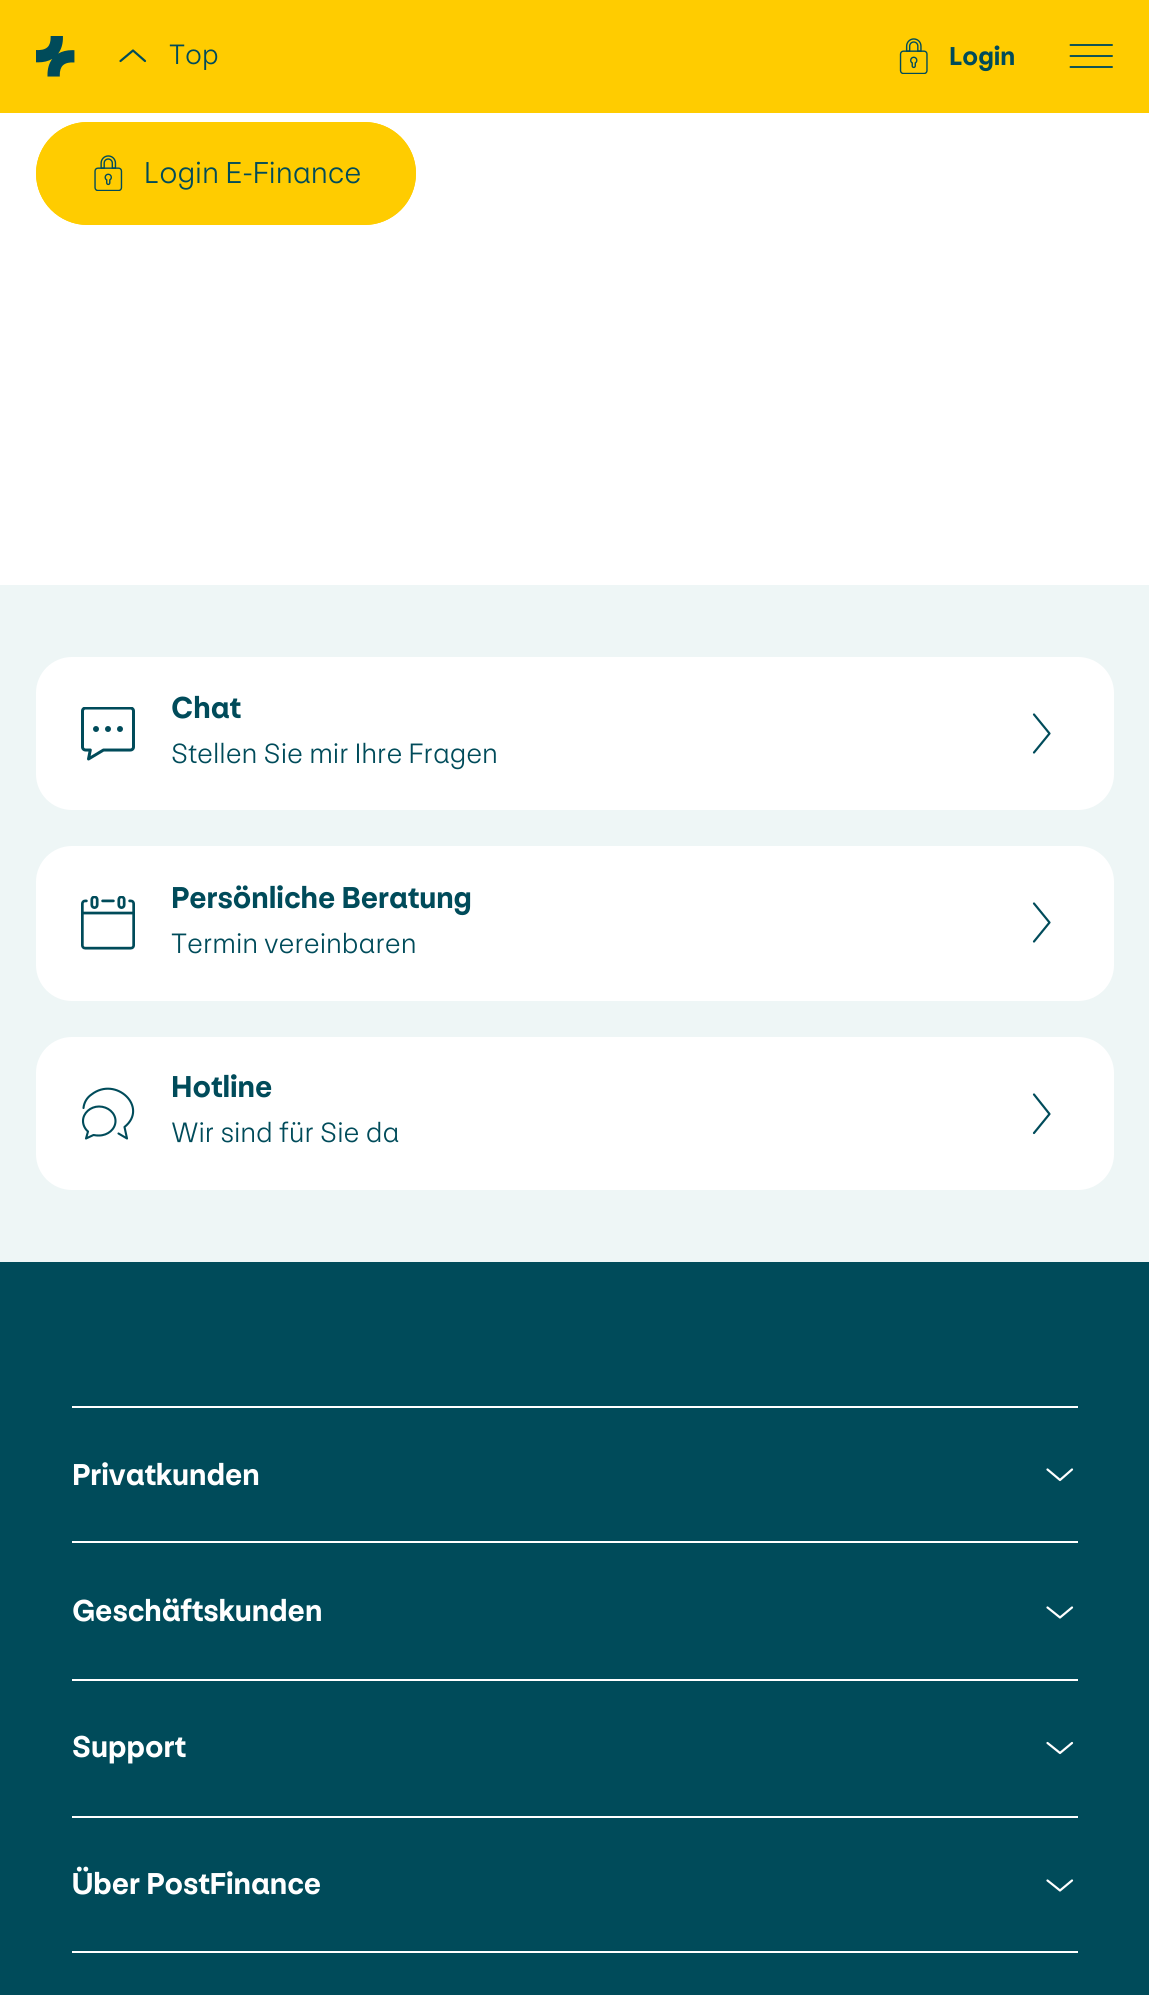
#include <cairo/cairo.h>
#include <math.h>
#include <stddef.h>


static void rounded_rect(cairo_t *cr, double x, double y, double w, double h, double r) {
  cairo_new_sub_path(cr);
  cairo_arc(cr, x + w - r, y + h - r, r, 0, M_PI / 2);
  cairo_arc(cr, x + r, y + h - r, r, M_PI / 2, M_PI);
  cairo_arc(cr, x + r, y + r, r, M_PI, 1.5 * M_PI);
  cairo_arc(cr, x + w - r, y + r, r, 1.5 * M_PI, 2 * M_PI);
  cairo_close_path(cr);
}

static void draw_image(cairo_t *cr, const char *path, double x, double y, double w, double h) {
  cairo_surface_t *image = cairo_image_surface_create_from_png(path);
  cairo_save(cr);
  cairo_set_source_surface(cr, image, x, y);
  cairo_rectangle(cr, x, y, w, h);
  cairo_fill(cr);
  cairo_restore(cr);
  cairo_surface_destroy(image);
}

static void draw(cairo_t *cr) {
  cairo_set_source_rgb(cr, 1, 1, 1);
  cairo_paint(cr);
  cairo_set_source_rgb(cr, 1, 204 / 255.0, 0);
  cairo_rectangle(cr, 0, 0, 1149, 113);
  cairo_fill(cr);
  draw_image(cr, "images/1.png", 36, 36, 39, 41);
  cairo_new_path(cr);
  cairo_move_to(cr, 120.5, 61);
  cairo_line_to(cr, 133, 50.5);
  cairo_line_to(cr, 145, 61);
  cairo_set_source_rgb(cr, 0, 75 / 255.0, 90 / 255.0);
  cairo_set_line_width(cr, 2.2);
  cairo_set_line_cap(cr, CAIRO_LINE_CAP_ROUND);
  cairo_set_line_join(cr, CAIRO_LINE_JOIN_ROUND);
  cairo_stroke(cr);
  draw_image(cr, "images/2.png", 899, 38, 29, 36);
  cairo_new_path(cr);
  cairo_move_to(cr, 1070.5, 45);
  cairo_line_to(cr, 1112, 45);
  cairo_move_to(cr, 1070.5, 56);
  cairo_line_to(cr, 1112, 56);
  cairo_move_to(cr, 1070.5, 67);
  cairo_line_to(cr, 1112, 67);
  cairo_set_line_width(cr, 1.9);
  cairo_stroke(cr);
  cairo_set_source_rgb(cr, 1, 204 / 255.0, 0);
  rounded_rect(cr, 36, 122, 380, 103, 51.5);
  cairo_fill(cr);
  rounded_rect(cr, 39.5, 125.5, 373, 96, 48);
  cairo_set_line_width(cr, 7);
  cairo_set_line_cap(cr, CAIRO_LINE_CAP_BUTT);
  cairo_set_line_join(cr, CAIRO_LINE_JOIN_MITER);
  cairo_stroke(cr);
  draw_image(cr, "images/3.png", 94, 155, 29, 36);
  cairo_set_source_rgb(cr, 0, 75 / 255.0, 90 / 255.0);
  cairo_rectangle(cr, 0, 1262, 1149, 733);
  cairo_fill(cr);
  cairo_set_source_rgb(cr, 238 / 255.0, 246 / 255.0, 246 / 255.0);
  cairo_rectangle(cr, 0, 585, 1149, 677);
  cairo_fill(cr);
  cairo_set_source_rgb(cr, 1, 1, 1);
  rounded_rect(cr, 36, 657, 1078, 153, 36);
  cairo_fill(cr);
  draw_image(cr, "images/4.png", 81, 707, 54, 54);
  cairo_new_path(cr);
  cairo_move_to(cr, 1034, 752.5);
  cairo_line_to(cr, 1049.5, 733.5);
  cairo_line_to(cr, 1034, 714.5);
  cairo_set_source_rgb(cr, 0, 75 / 255.0, 90 / 255.0);
  cairo_set_line_width(cr, 2.2);
  cairo_set_line_cap(cr, CAIRO_LINE_CAP_ROUND);
  cairo_set_line_join(cr, CAIRO_LINE_JOIN_ROUND);
  cairo_stroke(cr);
  cairo_set_source_rgb(cr, 1, 1, 1);
  rounded_rect(cr, 36, 846, 1078, 155, 36);
  cairo_fill(cr);
  draw_image(cr, "images/5.png", 81, 896, 54, 54);
  cairo_new_path(cr);
  cairo_move_to(cr, 1034, 941.5);
  cairo_line_to(cr, 1049.5, 922.5);
  cairo_line_to(cr, 1034, 903.5);
  cairo_set_source_rgb(cr, 0, 75 / 255.0, 90 / 255.0);
  cairo_stroke(cr);
  cairo_set_source_rgb(cr, 1, 1, 1);
  rounded_rect(cr, 36, 1037, 1078, 153, 36);
  cairo_fill(cr);
  cairo_new_path(cr);
  cairo_move_to(cr, 83.5, 1108);
  cairo_curve_to(cr, 84, 1102.5, 87, 1097.5, 91.5, 1094.5);
  cairo_curve_to(cr, 116, 1075.5, 149, 1107.5, 124.5, 1127);
  cairo_line_to(cr, 127, 1138.5);
  cairo_line_to(cr, 118.5, 1133.5);
  cairo_move_to(cr, 88, 1131.5);
  cairo_curve_to(cr, 85, 1129, 83, 1125, 83, 1121);
  cairo_curve_to(cr, 83, 1113, 90.5, 1106.5, 99, 1106.5);
  cairo_curve_to(cr, 108, 1106.5, 115.5, 1113, 115.5, 1121);
  cairo_curve_to(cr, 115.5, 1129, 108, 1135.5, 99, 1135.5);
  cairo_curve_to(cr, 97.5, 1135.5, 95.5, 1135.5, 93.5, 1135);
  cairo_line_to(cr, 86, 1138.5);
  cairo_close_path(cr);
  cairo_set_source_rgb(cr, 0, 75 / 255.0, 90 / 255.0);
  cairo_set_line_width(cr, 2.1);
  cairo_stroke(cr);
  cairo_new_path(cr);
  cairo_move_to(cr, 1034, 1133);
  cairo_line_to(cr, 1049.5, 1114);
  cairo_line_to(cr, 1034, 1094.5);
  cairo_set_line_width(cr, 2.2);
  cairo_stroke(cr);
  cairo_set_source_rgb(cr, 1, 1, 1);
  cairo_rectangle(cr, 72, 1406, 1006, 2);
  cairo_fill(cr);
  cairo_new_path(cr);
  cairo_move_to(cr, 1072, 1469.5);
  cairo_line_to(cr, 1060, 1480);
  cairo_line_to(cr, 1047.5, 1469.5);
  cairo_stroke(cr);
  cairo_rectangle(cr, 72, 1541, 1006, 2);
  cairo_fill(cr);
  cairo_new_path(cr);
  cairo_move_to(cr, 1072, 1607.5);
  cairo_line_to(cr, 1060, 1617.5);
  cairo_line_to(cr, 1047.5, 1607.5);
  cairo_stroke(cr);
  cairo_rectangle(cr, 72, 1679, 1006, 2);
  cairo_fill(cr);
  cairo_new_path(cr);
  cairo_move_to(cr, 1072, 1743);
  cairo_line_to(cr, 1060, 1753);
  cairo_line_to(cr, 1047.5, 1743);
  cairo_stroke(cr);
  cairo_rectangle(cr, 72, 1816, 1006, 2);
  cairo_fill(cr);
  cairo_rectangle(cr, 72, 1951, 1006, 2);
  cairo_fill(cr);
  cairo_new_path(cr);
  cairo_move_to(cr, 1072, 1880.5);
  cairo_line_to(cr, 1060, 1890.5);
  cairo_line_to(cr, 1047.5, 1880.5);
  cairo_stroke(cr);
  cairo_select_font_face(cr, "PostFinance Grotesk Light", CAIRO_FONT_SLANT_NORMAL, CAIRO_FONT_WEIGHT_NORMAL);
  cairo_set_font_size(cr, 29.25);
  cairo_set_source_rgb(cr, 0, 75 / 255.0, 90 / 255.0);
  cairo_move_to(cr, 169, 64);
  cairo_show_text(cr, "Top");
  cairo_select_font_face(cr, "PostFinance Grotesk", CAIRO_FONT_SLANT_NORMAL, CAIRO_FONT_WEIGHT_BOLD);
  cairo_set_font_size(cr, 27);
  cairo_move_to(cr, 949, 65);
  cairo_show_text(cr, "Login");
  cairo_select_font_face(cr, "PostFinance Grotesk Light", CAIRO_FONT_SLANT_NORMAL, CAIRO_FONT_WEIGHT_NORMAL);
  cairo_set_font_size(cr, 31.5);
  cairo_move_to(cr, 144, 183);
  cairo_show_text(cr, "Login E-Finance");
  cairo_select_font_face(cr, "PostFinance Grotesk", CAIRO_FONT_SLANT_NORMAL, CAIRO_FONT_WEIGHT_BOLD);
  cairo_move_to(cr, 171, 718);
  cairo_show_text(cr, "Chat");
  cairo_select_font_face(cr, "PostFinance Grotesk Light", CAIRO_FONT_SLANT_NORMAL, CAIRO_FONT_WEIGHT_NORMAL);
  cairo_set_font_size(cr, 29.25);
  cairo_move_to(cr, 171, 763);
  cairo_show_text(cr, "Stellen Sie mir Ihre Fragen");
  cairo_select_font_face(cr, "PostFinance Grotesk", CAIRO_FONT_SLANT_NORMAL, CAIRO_FONT_WEIGHT_BOLD);
  cairo_set_font_size(cr, 31.5);
  cairo_move_to(cr, 171, 908);
  cairo_show_text(cr, "Persönliche Beratung");
  cairo_select_font_face(cr, "PostFinance Grotesk Light", CAIRO_FONT_SLANT_NORMAL, CAIRO_FONT_WEIGHT_NORMAL);
  cairo_set_font_size(cr, 29.25);
  cairo_move_to(cr, 171, 953);
  cairo_show_text(cr, "Termin vereinbaren");
  cairo_select_font_face(cr, "PostFinance Grotesk", CAIRO_FONT_SLANT_NORMAL, CAIRO_FONT_WEIGHT_BOLD);
  cairo_set_font_size(cr, 31.5);
  cairo_move_to(cr, 171, 1097);
  cairo_show_text(cr, "Hotline");
  cairo_select_font_face(cr, "PostFinance Grotesk Light", CAIRO_FONT_SLANT_NORMAL, CAIRO_FONT_WEIGHT_NORMAL);
  cairo_set_font_size(cr, 29.25);
  cairo_move_to(cr, 171, 1142);
  cairo_show_text(cr, "Wir sind für Sie da");
  cairo_select_font_face(cr, "PostFinance Grotesk", CAIRO_FONT_SLANT_NORMAL, CAIRO_FONT_WEIGHT_BOLD);
  cairo_set_font_size(cr, 31.5);
  cairo_set_source_rgb(cr, 1, 1, 1);
  cairo_move_to(cr, 72, 1485);
  cairo_show_text(cr, "Privatkunden");
  cairo_move_to(cr, 72, 1621);
  cairo_show_text(cr, "Geschäftskunden");
  cairo_move_to(cr, 72, 1757);
  cairo_show_text(cr, "Support");
  cairo_move_to(cr, 72, 1894);
  cairo_show_text(cr, "Über PostFinance");
}

int main(void) {
  cairo_surface_t *surface = cairo_image_surface_create(CAIRO_FORMAT_RGB24, 1149, 1995);
  cairo_t *cr = cairo_create(surface);
  cairo_font_options_t *options = cairo_font_options_create();
  cairo_font_options_set_hint_metrics(options, CAIRO_HINT_METRICS_OFF);
  cairo_font_options_set_hint_style(options, CAIRO_HINT_STYLE_NONE);
  cairo_set_font_options(cr, options);
  cairo_set_miter_limit(cr, 4);
  draw(cr);
  cairo_surface_write_to_png(surface, "out.png");
  cairo_font_options_destroy(options);
  cairo_destroy(cr);
  cairo_surface_destroy(surface);
  return 0;
}
